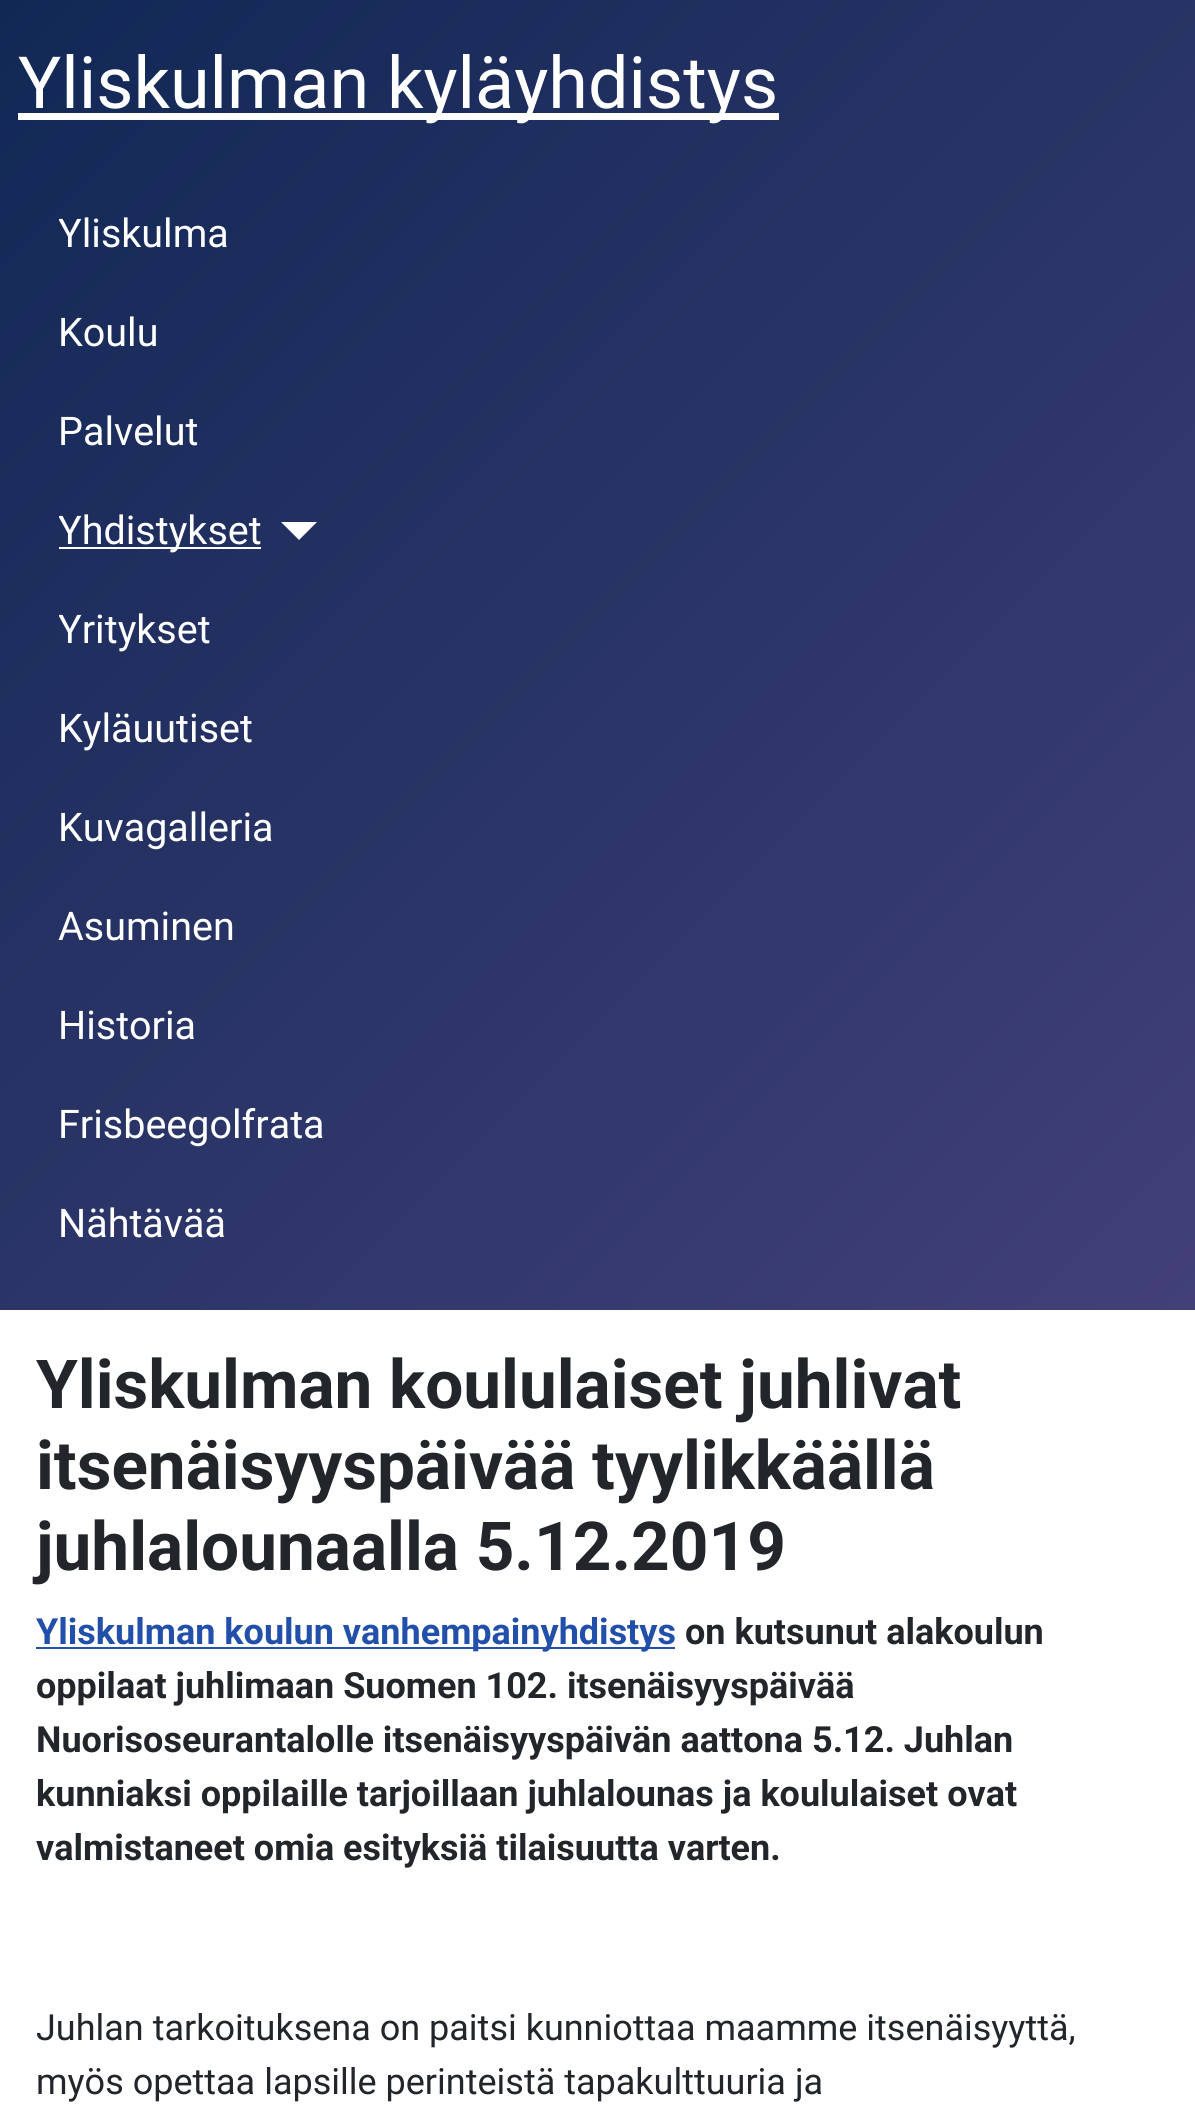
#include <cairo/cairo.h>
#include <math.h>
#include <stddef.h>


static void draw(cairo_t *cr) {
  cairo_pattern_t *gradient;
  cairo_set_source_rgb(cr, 1, 1, 1);
  cairo_paint(cr);
  gradient = cairo_pattern_create_linear(-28, 28, 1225, 1281);
  cairo_pattern_add_color_stop_rgba(gradient, 0, 17 / 255.0, 40 / 255.0, 85 / 255.0, 1);
  cairo_pattern_add_color_stop_rgba(gradient, 1, 66 / 255.0, 64 / 255.0, 119 / 255.0, 1);
  cairo_set_source(cr, gradient);
  cairo_pattern_destroy(gradient);
  cairo_rectangle(cr, 0, 0, 1195, 1310);
  cairo_fill(cr);
  cairo_set_source_rgb(cr, 1, 1, 1);
  cairo_rectangle(cr, 18, 113, 761, 7);
  cairo_fill(cr);
  cairo_rectangle(cr, 59, 547, 202, 2);
  cairo_fill(cr);
  cairo_new_path(cr);
  cairo_move_to(cr, 281, 522);
  cairo_line_to(cr, 317, 522);
  cairo_line_to(cr, 299, 540);
  cairo_close_path(cr);
  cairo_fill(cr);
  cairo_set_source_rgb(cr, 34 / 255.0, 79 / 255.0, 170 / 255.0);
  cairo_rectangle(cr, 36, 1647, 639, 2);
  cairo_fill(cr);
  cairo_select_font_face(cr, "Roboto", CAIRO_FONT_SLANT_NORMAL, CAIRO_FONT_WEIGHT_NORMAL);
  cairo_set_font_size(cr, 72);
  cairo_set_source_rgb(cr, 1, 1, 1);
  cairo_move_to(cr, 18, 108);
  cairo_show_text(cr, "Yliskulman kyläyhdistys");
  cairo_save(cr);
  cairo_rectangle(cr, 59, 205, 171, 58);
  cairo_clip(cr);
  cairo_set_font_size(cr, 39.5);
  cairo_move_to(cr, 58, 247);
  cairo_show_text(cr, "Yliskulma");
  cairo_restore(cr);
  cairo_set_font_size(cr, 39.5);
  cairo_move_to(cr, 58, 346);
  cairo_show_text(cr, "Koulu");
  cairo_move_to(cr, 58, 445);
  cairo_show_text(cr, "Palvelut");
  cairo_save(cr);
  cairo_rectangle(cr, 59, 502, 202, 58);
  cairo_clip(cr);
  cairo_move_to(cr, 58, 544);
  cairo_show_text(cr, "Yhdistykset");
  cairo_restore(cr);
  cairo_save(cr);
  cairo_rectangle(cr, 59, 601, 153, 58);
  cairo_clip(cr);
  cairo_move_to(cr, 58, 643);
  cairo_show_text(cr, "Yritykset");
  cairo_restore(cr);
  cairo_move_to(cr, 58, 742);
  cairo_show_text(cr, "Kyläuutiset");
  cairo_move_to(cr, 58, 841);
  cairo_show_text(cr, "Kuvagalleria");
  cairo_move_to(cr, 58, 940);
  cairo_show_text(cr, "Asuminen");
  cairo_move_to(cr, 58, 1039);
  cairo_show_text(cr, "Historia");
  cairo_move_to(cr, 58, 1138);
  cairo_show_text(cr, "Frisbeegolfrata");
  cairo_move_to(cr, 58, 1237);
  cairo_show_text(cr, "Nähtävää");
  cairo_select_font_face(cr, "Roboto", CAIRO_FONT_SLANT_NORMAL, CAIRO_FONT_WEIGHT_BOLD);
  cairo_set_font_size(cr, 67.5);
  cairo_set_source_rgb(cr, 34 / 255.0, 38 / 255.0, 42 / 255.0);
  cairo_move_to(cr, 36, 1408);
  cairo_show_text(cr, "Yliskulman koululaiset juhlivat");
  cairo_move_to(cr, 36, 1489);
  cairo_show_text(cr, "itsenäisyyspäivää tyylikkäällä");
  cairo_move_to(cr, 36, 1570);
  cairo_show_text(cr, "juhlalounaalla 5.12.2019");
  cairo_set_font_size(cr, 36);
  cairo_set_source_rgb(cr, 34 / 255.0, 79 / 255.0, 170 / 255.0);
  cairo_move_to(cr, 36, 1644);
  cairo_show_text(cr, "Yliskulman koulun vanhempainyhdistys");
  cairo_set_source_rgb(cr, 34 / 255.0, 38 / 255.0, 42 / 255.0);
  cairo_move_to(cr, 685, 1644);
  cairo_show_text(cr, "on kutsunut alakoulun");
  cairo_move_to(cr, 36, 1698);
  cairo_show_text(cr, "oppilaat juhlimaan Suomen 102. itsenäisyyspäivää");
  cairo_move_to(cr, 36, 1752);
  cairo_show_text(cr, "Nuorisoseurantalolle itsenäisyyspäivän aattona 5.12. Juhlan");
  cairo_move_to(cr, 36, 1806);
  cairo_show_text(cr, "kunniaksi oppilaille tarjoillaan juhlalounas ja koululaiset ovat");
  cairo_move_to(cr, 36, 1860);
  cairo_show_text(cr, "valmistaneet omia esityksiä tilaisuutta varten.");
  cairo_select_font_face(cr, "Roboto", CAIRO_FONT_SLANT_NORMAL, CAIRO_FONT_WEIGHT_NORMAL);
  cairo_move_to(cr, 36, 2040);
  cairo_show_text(cr, "Juhlan tarkoituksena on paitsi kunniottaa maamme itsenäisyyttä,");
  cairo_move_to(cr, 36, 2094);
  cairo_show_text(cr, "myös opettaa lapsille perinteistä tapakulttuuria ja");
}

int main(void) {
  cairo_surface_t *surface = cairo_image_surface_create(CAIRO_FORMAT_RGB24, 1195, 2104);
  cairo_t *cr = cairo_create(surface);
  cairo_font_options_t *options = cairo_font_options_create();
  cairo_font_options_set_hint_metrics(options, CAIRO_HINT_METRICS_OFF);
  cairo_font_options_set_hint_style(options, CAIRO_HINT_STYLE_NONE);
  cairo_set_font_options(cr, options);
  cairo_set_miter_limit(cr, 4);
  draw(cr);
  cairo_surface_write_to_png(surface, "out.png");
  cairo_font_options_destroy(options);
  cairo_destroy(cr);
  cairo_surface_destroy(surface);
  return 0;
}
